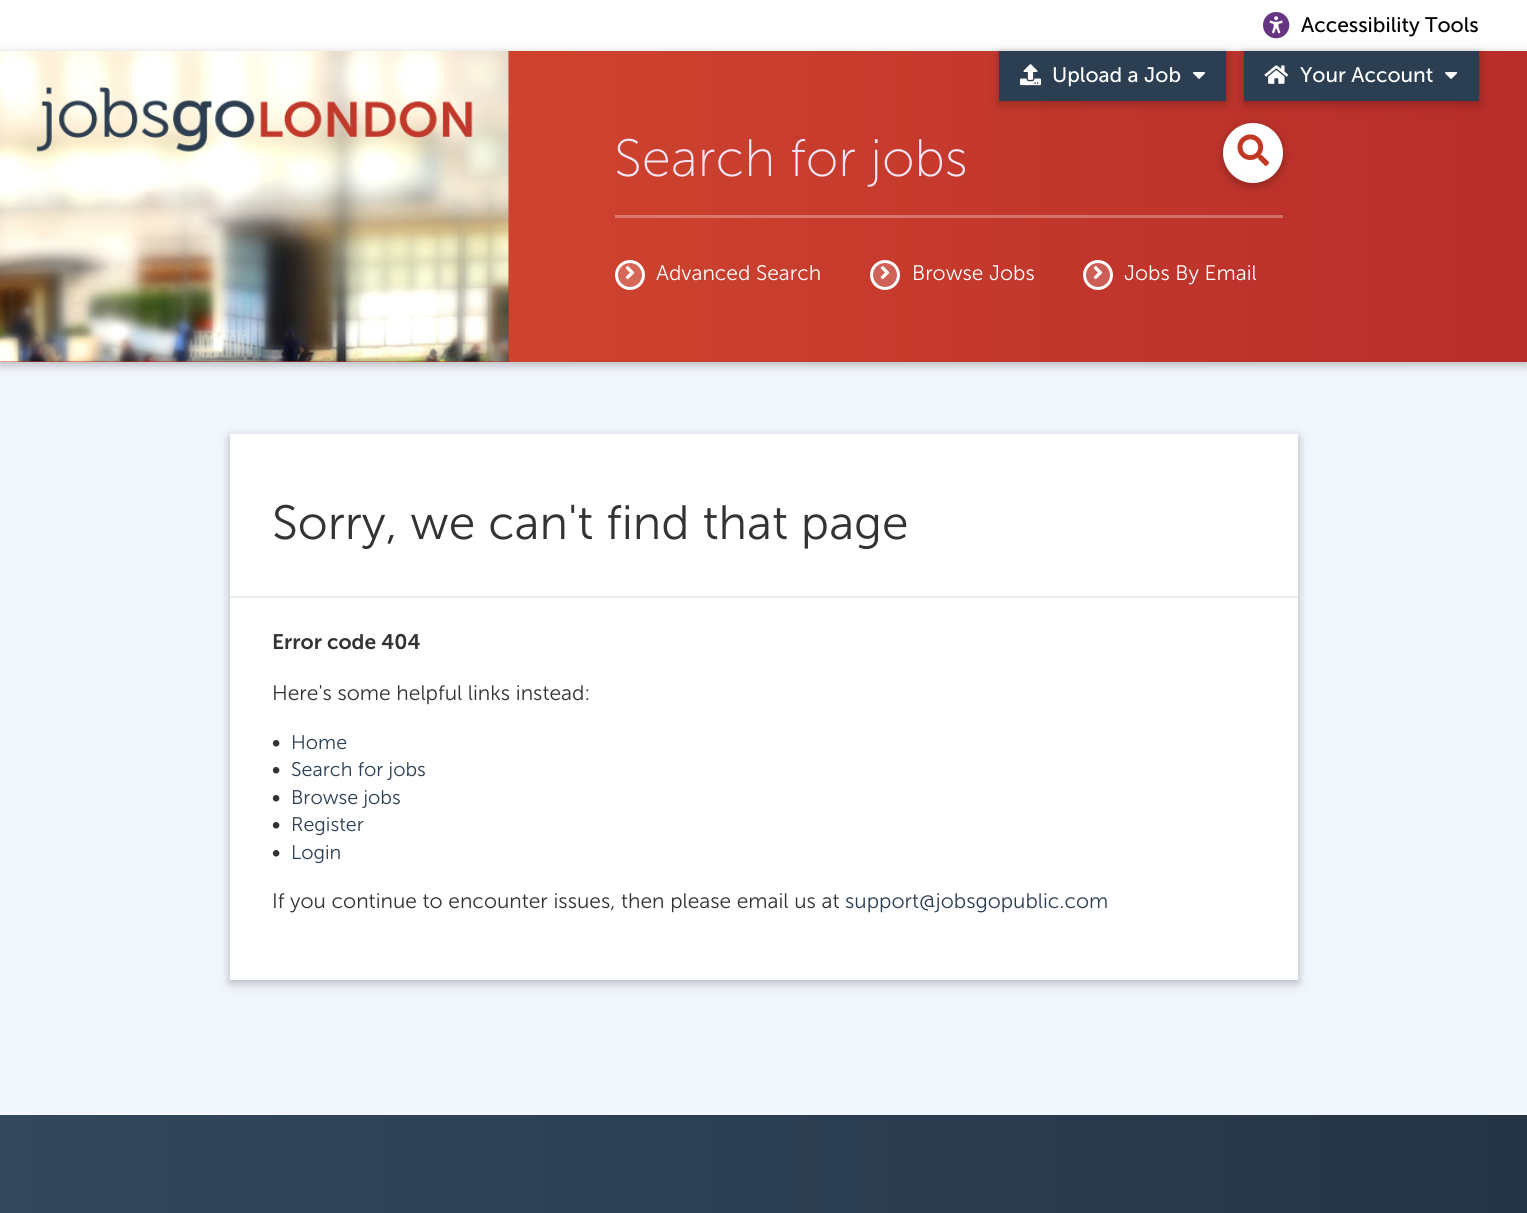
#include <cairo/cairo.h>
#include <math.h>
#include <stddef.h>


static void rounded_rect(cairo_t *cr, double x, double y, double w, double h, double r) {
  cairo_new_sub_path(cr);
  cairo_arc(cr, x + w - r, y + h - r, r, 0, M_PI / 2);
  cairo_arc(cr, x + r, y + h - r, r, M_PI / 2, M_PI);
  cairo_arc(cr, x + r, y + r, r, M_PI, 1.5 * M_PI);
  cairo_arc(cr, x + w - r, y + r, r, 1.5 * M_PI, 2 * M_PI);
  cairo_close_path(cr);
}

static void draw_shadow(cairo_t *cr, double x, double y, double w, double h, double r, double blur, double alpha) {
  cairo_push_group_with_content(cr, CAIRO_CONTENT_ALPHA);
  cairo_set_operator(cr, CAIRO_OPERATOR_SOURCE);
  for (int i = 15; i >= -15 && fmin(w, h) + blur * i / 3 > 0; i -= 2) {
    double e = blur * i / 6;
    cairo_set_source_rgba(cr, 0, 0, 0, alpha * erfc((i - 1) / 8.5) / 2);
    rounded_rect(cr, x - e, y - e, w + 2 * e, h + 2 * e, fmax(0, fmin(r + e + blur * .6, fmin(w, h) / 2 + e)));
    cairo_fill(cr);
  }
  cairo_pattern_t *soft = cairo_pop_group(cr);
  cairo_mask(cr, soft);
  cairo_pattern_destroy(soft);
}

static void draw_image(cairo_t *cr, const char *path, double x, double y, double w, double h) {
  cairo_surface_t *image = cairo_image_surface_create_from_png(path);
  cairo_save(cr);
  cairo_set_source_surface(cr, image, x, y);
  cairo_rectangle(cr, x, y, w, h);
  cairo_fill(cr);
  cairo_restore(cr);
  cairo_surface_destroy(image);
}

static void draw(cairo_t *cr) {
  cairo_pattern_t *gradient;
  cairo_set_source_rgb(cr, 242 / 255.0, 246 / 255.0, 253 / 255.0);
  cairo_paint(cr);
  cairo_set_source_rgb(cr, 1, 1, 1);
  cairo_rectangle(cr, 0, 0, 1527, 51);
  cairo_fill(cr);
  draw_image(cr, "images/1.png", 1263, 12, 27, 27);
  cairo_set_source_rgb(cr, 0, 0, 0);
  draw_shadow(cr, 0, 54, 1527, 311, 0, 7.5, 0.12);
  draw_shadow(cr, 0, 54, 1527, 311, 0, 4, 0.16);
  cairo_set_source_rgb(cr, 195 / 255.0, 56 / 255.0, 36 / 255.0);
  cairo_rectangle(cr, 0, 51, 509, 311);
  cairo_fill(cr);
  draw_image(cr, "images/2.png", 0, 51, 509, 311);
  draw_image(cr, "images/3.png", 36, 87, 437, 65);
  gradient = cairo_pattern_create_linear(509, 206, 1527, 206);
  cairo_pattern_add_color_stop_rgba(gradient, 0, 207 / 255.0, 67 / 255.0, 46 / 255.0, 1);
  cairo_pattern_add_color_stop_rgba(gradient, 1, 183 / 255.0, 45 / 255.0, 42 / 255.0, 1);
  cairo_set_source(cr, gradient);
  cairo_pattern_destroy(gradient);
  cairo_rectangle(cr, 509, 51, 1018, 311);
  cairo_fill(cr);
  gradient = cairo_pattern_create_linear(509, 206, 1527, 206);
  cairo_pattern_add_color_stop_rgba(gradient, 0, 221 / 255.0, 123 / 255.0, 109 / 255.0, 1);
  cairo_pattern_add_color_stop_rgba(gradient, 1, 205 / 255.0, 108 / 255.0, 106 / 255.0, 1);
  cairo_set_source(cr, gradient);
  cairo_pattern_destroy(gradient);
  cairo_rectangle(cr, 615, 215, 668, 3);
  cairo_fill(cr);
  cairo_set_source_rgb(cr, 0, 0, 0);
  draw_shadow(cr, 1223, 126, 60, 60, 30, 7.5, 0.12);
  draw_shadow(cr, 1223, 126, 60, 60, 30, 4, 0.16);
  cairo_set_source_rgb(cr, 1, 1, 1);
  cairo_arc(cr, 1253, 153, 30, 0, 2 * M_PI);
  cairo_fill(cr);
  cairo_set_source_rgb(cr, 0, 0, 0);
  draw_shadow(cr, 999, 54, 227, 50, 0, 7.5, 0.12);
  draw_shadow(cr, 999, 54, 227, 50, 0, 4, 0.16);
  cairo_set_source_rgb(cr, 44 / 255.0, 62 / 255.0, 81 / 255.0);
  cairo_rectangle(cr, 999, 51, 227, 50);
  cairo_fill(cr);
  draw_image(cr, "images/4.png", 1020, 64, 21, 22);
  draw_image(cr, "images/5.png", 1193, 72, 13, 7);
  cairo_set_source_rgb(cr, 0, 0, 0);
  draw_shadow(cr, 1244, 54, 235, 50, 0, 7.5, 0.12);
  draw_shadow(cr, 1244, 54, 235, 50, 0, 4, 0.16);
  cairo_set_source_rgb(cr, 44 / 255.0, 62 / 255.0, 81 / 255.0);
  cairo_rectangle(cr, 1244, 51, 235, 50);
  cairo_fill(cr);
  draw_image(cr, "images/6.png", 1264, 65, 25, 19);
  draw_image(cr, "images/5.png", 1445, 72, 13, 7);
  draw_image(cr, "images/7.png", 1237, 134, 32, 32);
  cairo_set_source_rgb(cr, 214 / 255.0, 102 / 255.0, 88 / 255.0);
  cairo_arc(cr, 630, 275, 13.5, 0, 2 * M_PI);
  cairo_fill_preserve(cr);
  cairo_set_source_rgb(cr, 1, 1, 1);
  cairo_set_line_width(cr, 3);
  cairo_stroke(cr);
  draw_image(cr, "images/8.png", 625, 266, 10, 14);
  cairo_set_source_rgb(cr, 209 / 255.0, 98 / 255.0, 87 / 255.0);
  cairo_arc(cr, 885, 275, 13.5, 0, 2 * M_PI);
  cairo_fill_preserve(cr);
  cairo_set_source_rgb(cr, 1, 1, 1);
  cairo_stroke(cr);
  draw_image(cr, "images/9.png", 880, 266, 10, 14);
  cairo_set_source_rgb(cr, 205 / 255.0, 94 / 255.0, 86 / 255.0);
  cairo_arc(cr, 1098, 275, 13.5, 0, 2 * M_PI);
  cairo_fill_preserve(cr);
  cairo_set_source_rgb(cr, 1, 1, 1);
  cairo_stroke(cr);
  draw_image(cr, "images/10.png", 1093, 266, 10, 14);
  cairo_set_source_rgb(cr, 0, 0, 0);
  draw_shadow(cr, 230, 437, 1068, 546, 0, 7.5, 0.12);
  draw_shadow(cr, 230, 437, 1068, 546, 0, 4, 0.16);
  cairo_set_source_rgb(cr, 1, 1, 1);
  cairo_rectangle(cr, 230, 434, 1068, 546);
  cairo_fill(cr);
  cairo_set_source_rgb(cr, 236 / 255.0, 236 / 255.0, 236 / 255.0);
  cairo_rectangle(cr, 230, 596, 1068, 2);
  cairo_fill(cr);
  gradient = cairo_pattern_create_linear(0, 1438, 1527, 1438);
  cairo_pattern_add_color_stop_rgba(gradient, 0, 51 / 255.0, 71 / 255.0, 93 / 255.0, 1);
  cairo_pattern_add_color_stop_rgba(gradient, 1, 37 / 255.0, 53 / 255.0, 69 / 255.0, 1);
  cairo_set_source(cr, gradient);
  cairo_pattern_destroy(gradient);
  cairo_rectangle(cr, 0, 1115, 1527, 98);
  cairo_fill(cr);
  cairo_select_font_face(cr, "Museo Sans", CAIRO_FONT_SLANT_NORMAL, CAIRO_FONT_WEIGHT_NORMAL);
  cairo_set_font_size(cr, 21);
  cairo_set_source_rgb(cr, 0, 0, 0);
  cairo_move_to(cr, 1301, 32);
  cairo_show_text(cr, "Accessibility Tools");
  cairo_set_source_rgb(cr, 1, 1, 1);
  cairo_move_to(cr, 1052, 82);
  cairo_show_text(cr, "Upload a Job");
  cairo_move_to(cr, 1300, 82);
  cairo_show_text(cr, "Your Account");
  cairo_select_font_face(cr, "Museo Sans ExtraLight", CAIRO_FONT_SLANT_NORMAL, CAIRO_FONT_WEIGHT_NORMAL);
  cairo_set_font_size(cr, 52.5);
  cairo_set_source_rgb(cr, 243 / 255.0, 229 / 255.0, 245 / 255.0);
  cairo_move_to(cr, 614, 176);
  cairo_show_text(cr, "Search for jobs");
  cairo_select_font_face(cr, "Museo Sans Light", CAIRO_FONT_SLANT_NORMAL, CAIRO_FONT_WEIGHT_NORMAL);
  cairo_set_font_size(cr, 21);
  cairo_set_source_rgb(cr, 1, 1, 1);
  cairo_move_to(cr, 656, 280);
  cairo_show_text(cr, "Advanced Search");
  cairo_move_to(cr, 912, 280);
  cairo_show_text(cr, "Browse Jobs");
  cairo_move_to(cr, 1124, 280);
  cairo_show_text(cr, "Jobs By Email");
  cairo_set_font_size(cr, 48);
  cairo_set_source_rgb(cr, 51 / 255.0, 51 / 255.0, 51 / 255.0);
  cairo_move_to(cr, 272, 539);
  cairo_show_text(cr, "Sorry, we can't find that page");
  cairo_select_font_face(cr, "Museo Sans SemiBold", CAIRO_FONT_SLANT_NORMAL, CAIRO_FONT_WEIGHT_NORMAL);
  cairo_set_font_size(cr, 21);
  cairo_move_to(cr, 272, 649);
  cairo_show_text(cr, "Error code 404");
  cairo_select_font_face(cr, "Museo Sans Light", CAIRO_FONT_SLANT_NORMAL, CAIRO_FONT_WEIGHT_NORMAL);
  cairo_move_to(cr, 272, 700);
  cairo_show_text(cr, "Here's some helpful links instead:");
  cairo_select_font_face(cr, "Museo Sans SemiBold", CAIRO_FONT_SLANT_NORMAL, CAIRO_FONT_WEIGHT_NORMAL);
  cairo_set_font_size(cr, 19.75);
  cairo_move_to(cr, 272, 749);
  cairo_show_text(cr, "•");
  cairo_select_font_face(cr, "Museo Sans Light", CAIRO_FONT_SLANT_NORMAL, CAIRO_FONT_WEIGHT_NORMAL);
  cairo_set_source_rgb(cr, 44 / 255.0, 62 / 255.0, 81 / 255.0);
  cairo_move_to(cr, 291, 749);
  cairo_show_text(cr, "Home");
  cairo_select_font_face(cr, "Museo Sans SemiBold", CAIRO_FONT_SLANT_NORMAL, CAIRO_FONT_WEIGHT_NORMAL);
  cairo_set_source_rgb(cr, 51 / 255.0, 51 / 255.0, 51 / 255.0);
  cairo_move_to(cr, 272, 776);
  cairo_show_text(cr, "•");
  cairo_select_font_face(cr, "Museo Sans Light", CAIRO_FONT_SLANT_NORMAL, CAIRO_FONT_WEIGHT_NORMAL);
  cairo_set_source_rgb(cr, 44 / 255.0, 62 / 255.0, 81 / 255.0);
  cairo_move_to(cr, 291, 776);
  cairo_show_text(cr, "Search for jobs");
  cairo_select_font_face(cr, "Museo Sans SemiBold", CAIRO_FONT_SLANT_NORMAL, CAIRO_FONT_WEIGHT_NORMAL);
  cairo_set_source_rgb(cr, 51 / 255.0, 51 / 255.0, 51 / 255.0);
  cairo_move_to(cr, 272, 804);
  cairo_show_text(cr, "•");
  cairo_select_font_face(cr, "Museo Sans Light", CAIRO_FONT_SLANT_NORMAL, CAIRO_FONT_WEIGHT_NORMAL);
  cairo_set_source_rgb(cr, 44 / 255.0, 62 / 255.0, 81 / 255.0);
  cairo_move_to(cr, 291, 804);
  cairo_show_text(cr, "Browse jobs");
  cairo_select_font_face(cr, "Museo Sans SemiBold", CAIRO_FONT_SLANT_NORMAL, CAIRO_FONT_WEIGHT_NORMAL);
  cairo_set_source_rgb(cr, 51 / 255.0, 51 / 255.0, 51 / 255.0);
  cairo_move_to(cr, 272, 831);
  cairo_show_text(cr, "•");
  cairo_select_font_face(cr, "Museo Sans Light", CAIRO_FONT_SLANT_NORMAL, CAIRO_FONT_WEIGHT_NORMAL);
  cairo_set_source_rgb(cr, 44 / 255.0, 62 / 255.0, 81 / 255.0);
  cairo_move_to(cr, 291, 831);
  cairo_show_text(cr, "Register");
  cairo_select_font_face(cr, "Museo Sans SemiBold", CAIRO_FONT_SLANT_NORMAL, CAIRO_FONT_WEIGHT_NORMAL);
  cairo_set_source_rgb(cr, 51 / 255.0, 51 / 255.0, 51 / 255.0);
  cairo_move_to(cr, 272, 859);
  cairo_show_text(cr, "•");
  cairo_select_font_face(cr, "Museo Sans Light", CAIRO_FONT_SLANT_NORMAL, CAIRO_FONT_WEIGHT_NORMAL);
  cairo_set_source_rgb(cr, 44 / 255.0, 62 / 255.0, 81 / 255.0);
  cairo_move_to(cr, 291, 859);
  cairo_show_text(cr, "Login");
  cairo_set_font_size(cr, 21);
  cairo_set_source_rgb(cr, 51 / 255.0, 51 / 255.0, 51 / 255.0);
  cairo_move_to(cr, 272, 908);
  cairo_show_text(cr, "If you continue to encounter issues, then please email us at");
  cairo_set_source_rgb(cr, 44 / 255.0, 62 / 255.0, 81 / 255.0);
  cairo_move_to(cr, 845, 908);
  cairo_show_text(cr, "support@jobsgopublic.com");
}

int main(void) {
  cairo_surface_t *surface = cairo_image_surface_create(CAIRO_FORMAT_RGB24, 1527, 1213);
  cairo_t *cr = cairo_create(surface);
  cairo_font_options_t *options = cairo_font_options_create();
  cairo_font_options_set_hint_metrics(options, CAIRO_HINT_METRICS_OFF);
  cairo_font_options_set_hint_style(options, CAIRO_HINT_STYLE_NONE);
  cairo_set_font_options(cr, options);
  cairo_set_miter_limit(cr, 4);
  draw(cr);
  cairo_surface_write_to_png(surface, "out.png");
  cairo_font_options_destroy(options);
  cairo_destroy(cr);
  cairo_surface_destroy(surface);
  return 0;
}
